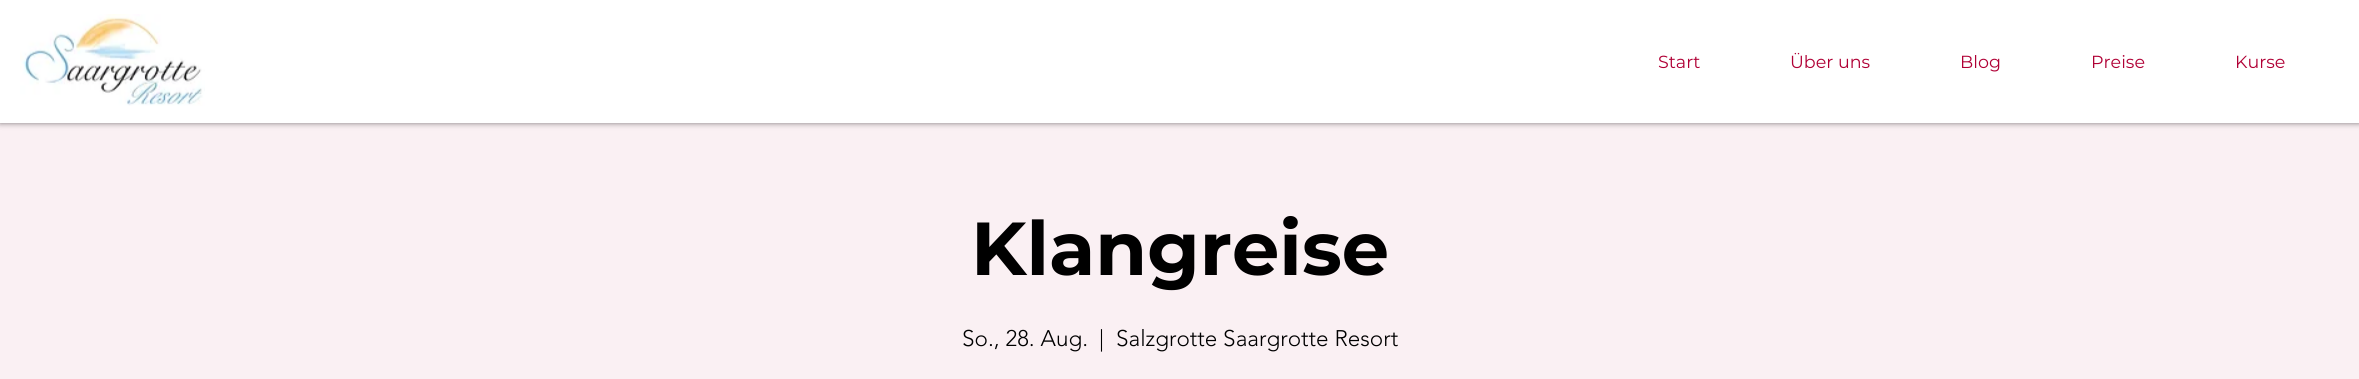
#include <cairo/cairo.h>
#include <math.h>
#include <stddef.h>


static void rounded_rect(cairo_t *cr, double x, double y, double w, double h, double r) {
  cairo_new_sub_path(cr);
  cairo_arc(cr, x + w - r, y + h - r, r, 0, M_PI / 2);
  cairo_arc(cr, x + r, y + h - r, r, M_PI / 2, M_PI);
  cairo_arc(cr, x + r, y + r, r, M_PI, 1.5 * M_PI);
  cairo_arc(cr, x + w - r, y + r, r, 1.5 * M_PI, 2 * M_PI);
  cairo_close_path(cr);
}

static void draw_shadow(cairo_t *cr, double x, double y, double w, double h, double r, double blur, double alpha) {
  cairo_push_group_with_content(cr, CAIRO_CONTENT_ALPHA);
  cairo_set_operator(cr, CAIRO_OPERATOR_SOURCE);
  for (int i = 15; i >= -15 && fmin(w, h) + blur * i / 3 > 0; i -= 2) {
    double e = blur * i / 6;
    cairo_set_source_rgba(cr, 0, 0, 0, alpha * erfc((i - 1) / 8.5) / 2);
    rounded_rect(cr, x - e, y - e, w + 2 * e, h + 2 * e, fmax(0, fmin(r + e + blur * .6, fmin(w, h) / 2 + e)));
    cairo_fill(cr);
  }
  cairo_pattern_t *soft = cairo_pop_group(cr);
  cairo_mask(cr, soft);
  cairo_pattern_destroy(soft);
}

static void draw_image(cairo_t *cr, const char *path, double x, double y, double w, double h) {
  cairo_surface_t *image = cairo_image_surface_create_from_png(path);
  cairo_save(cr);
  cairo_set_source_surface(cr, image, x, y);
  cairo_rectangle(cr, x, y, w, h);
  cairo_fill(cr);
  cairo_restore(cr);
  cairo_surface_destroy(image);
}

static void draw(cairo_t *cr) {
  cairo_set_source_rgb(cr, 250 / 255.0, 240 / 255.0, 243 / 255.0);
  cairo_paint(cr);
  cairo_set_source_rgb(cr, 0, 0, 0);
  draw_shadow(cr, 0, 0, 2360, 123, 0, 3, 0.5);
  cairo_set_source_rgb(cr, 1, 1, 1);
  cairo_rectangle(cr, 0, 0, 2359, 123);
  cairo_fill(cr);
  draw_image(cr, "images/1.png", 20, 14, 185, 92);
  cairo_select_font_face(cr, "Montserrat", CAIRO_FONT_SLANT_NORMAL, CAIRO_FONT_WEIGHT_NORMAL);
  cairo_set_font_size(cr, 17.5);
  cairo_set_source_rgb(cr, 176 / 255.0, 0, 53 / 255.0);
  cairo_move_to(cr, 1658, 68);
  cairo_show_text(cr, "Start");
  cairo_move_to(cr, 1790, 68);
  cairo_show_text(cr, "Über uns");
  cairo_move_to(cr, 1960, 68);
  cairo_show_text(cr, "Blog");
  cairo_move_to(cr, 2091, 68);
  cairo_show_text(cr, "Preise");
  cairo_move_to(cr, 2235, 68);
  cairo_show_text(cr, "Kurse");
  cairo_select_font_face(cr, "Montserrat", CAIRO_FONT_SLANT_NORMAL, CAIRO_FONT_WEIGHT_BOLD);
  cairo_set_font_size(cr, 75);
  cairo_set_source_rgb(cr, 0, 0, 0);
  cairo_move_to(cr, 971, 275);
  cairo_show_text(cr, "Klangreise");
  cairo_select_font_face(cr, "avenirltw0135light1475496 Light", CAIRO_FONT_SLANT_NORMAL, CAIRO_FONT_WEIGHT_NORMAL);
  cairo_set_font_size(cr, 22.5);
  cairo_move_to(cr, 962, 346);
  cairo_show_text(cr, "So., 28. Aug.");
  cairo_move_to(cr, 1099, 346);
  cairo_show_text(cr, "|");
  cairo_move_to(cr, 1116, 346);
  cairo_show_text(cr, "Salzgrotte Saargrotte Resort");
}

int main(void) {
  cairo_surface_t *surface = cairo_image_surface_create(CAIRO_FORMAT_RGB24, 2359, 379);
  cairo_t *cr = cairo_create(surface);
  cairo_font_options_t *options = cairo_font_options_create();
  cairo_font_options_set_hint_metrics(options, CAIRO_HINT_METRICS_OFF);
  cairo_font_options_set_hint_style(options, CAIRO_HINT_STYLE_NONE);
  cairo_set_font_options(cr, options);
  cairo_set_miter_limit(cr, 4);
  draw(cr);
  cairo_surface_write_to_png(surface, "out.png");
  cairo_font_options_destroy(options);
  cairo_destroy(cr);
  cairo_surface_destroy(surface);
  return 0;
}
